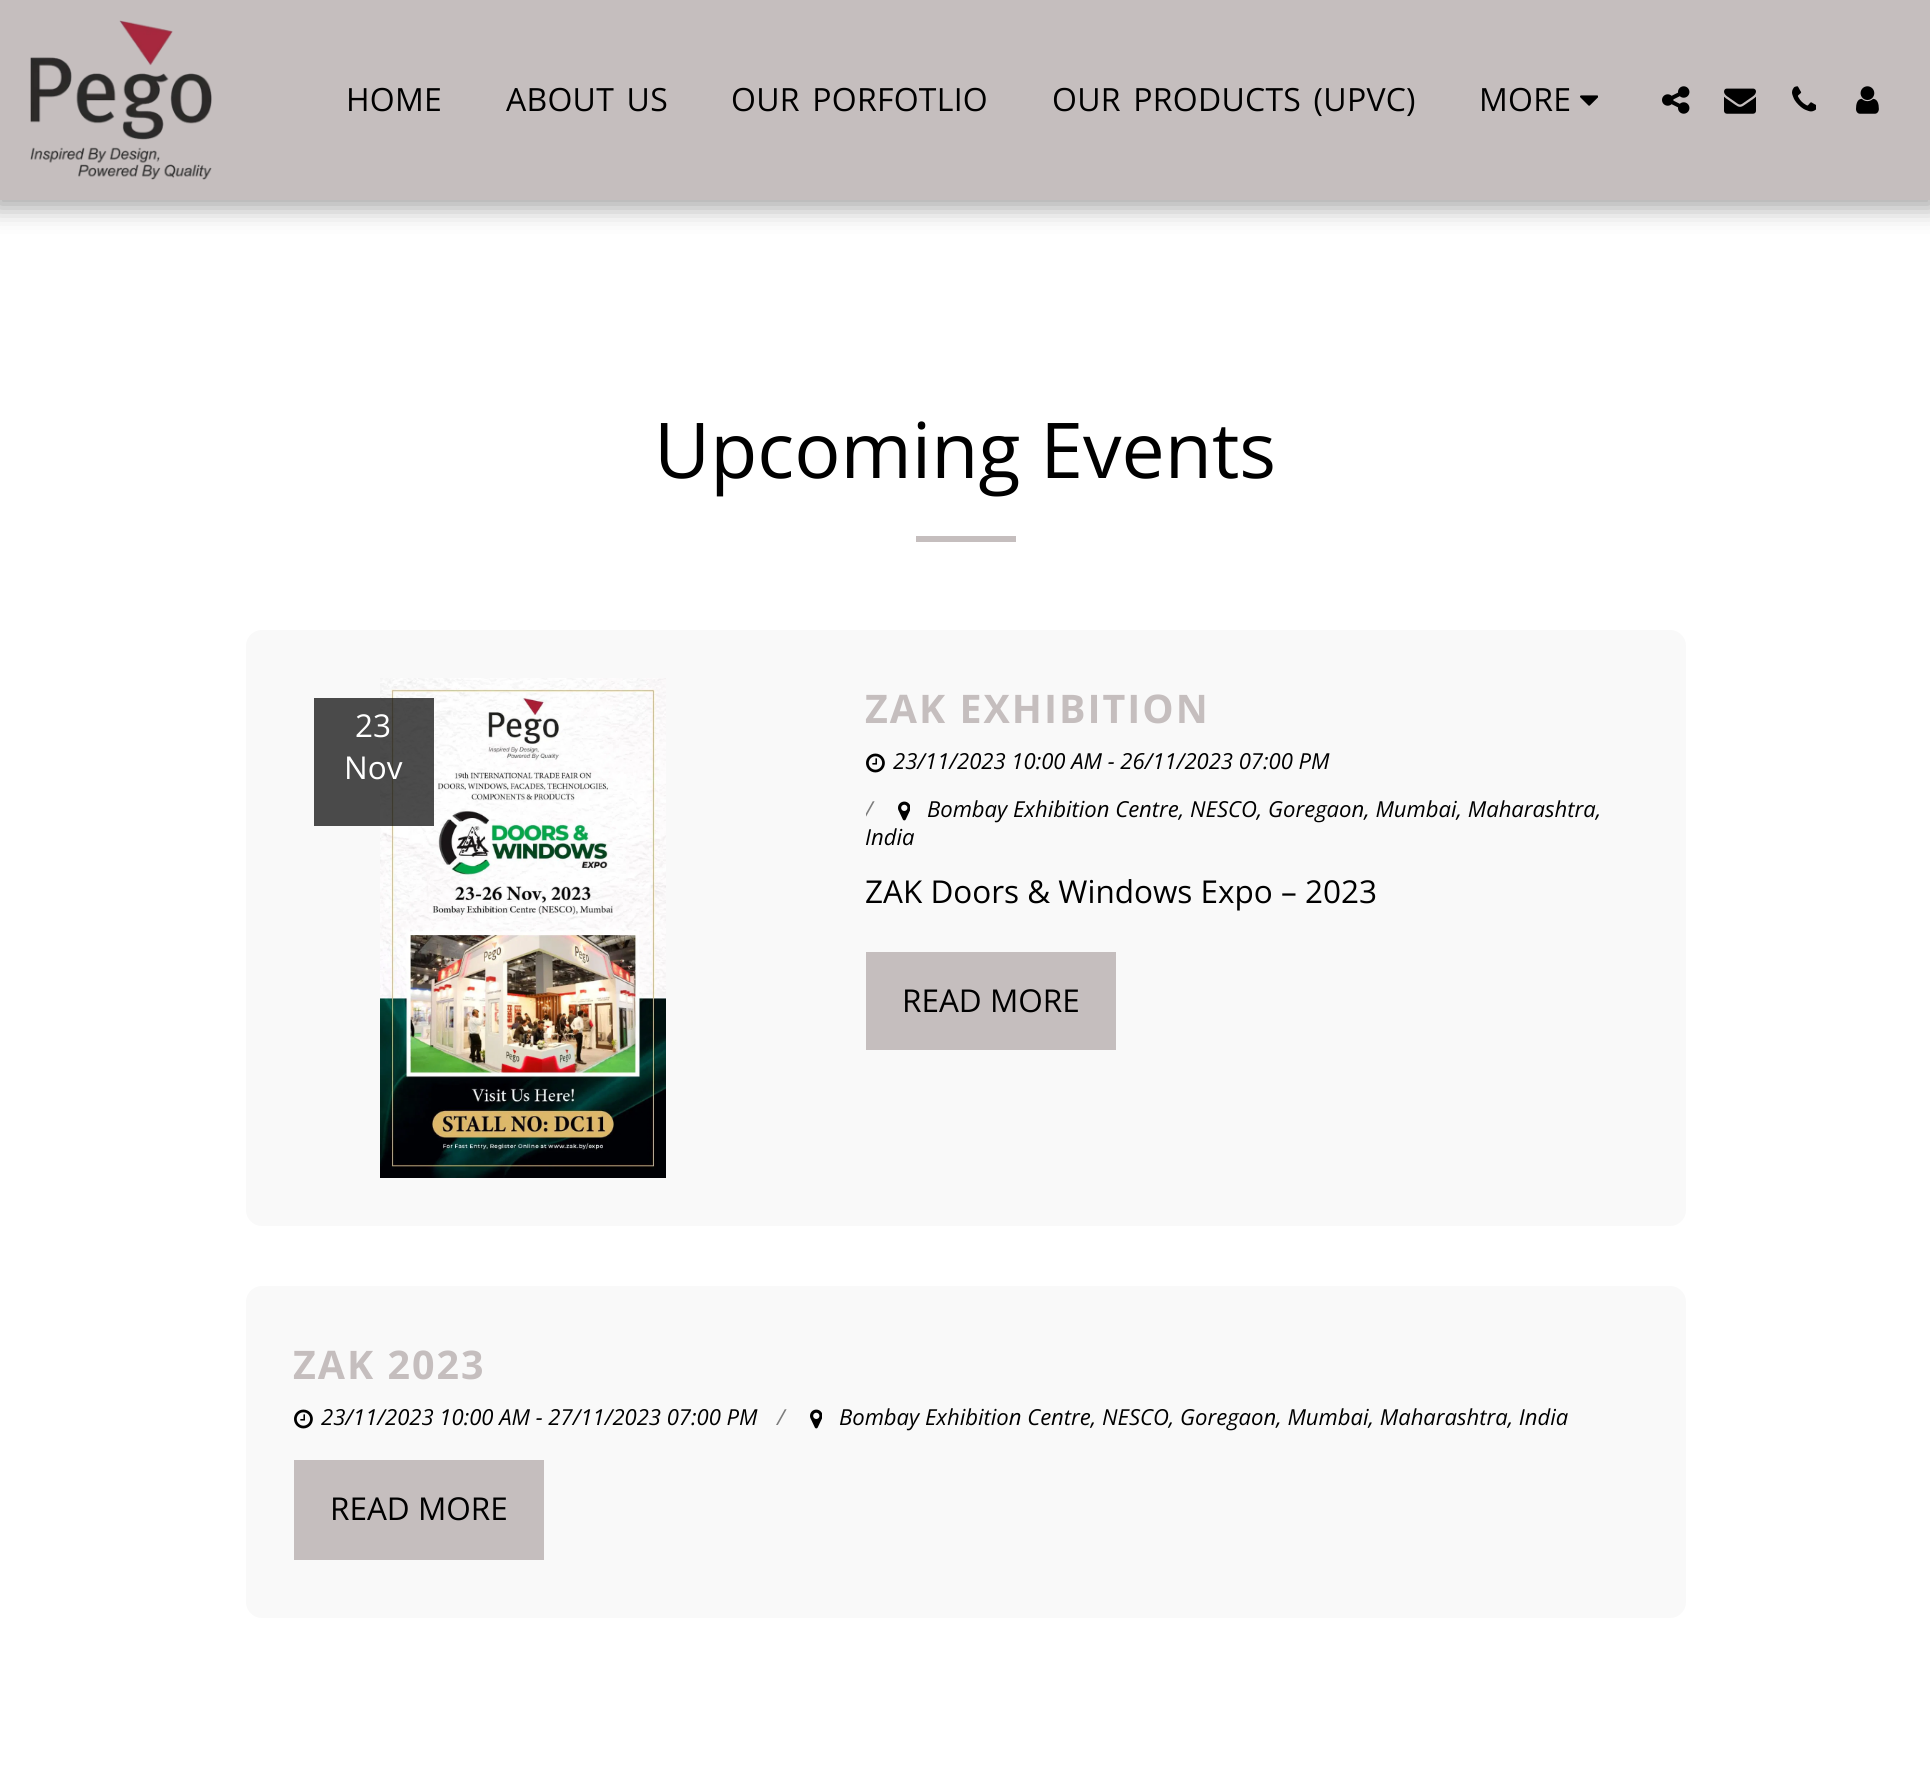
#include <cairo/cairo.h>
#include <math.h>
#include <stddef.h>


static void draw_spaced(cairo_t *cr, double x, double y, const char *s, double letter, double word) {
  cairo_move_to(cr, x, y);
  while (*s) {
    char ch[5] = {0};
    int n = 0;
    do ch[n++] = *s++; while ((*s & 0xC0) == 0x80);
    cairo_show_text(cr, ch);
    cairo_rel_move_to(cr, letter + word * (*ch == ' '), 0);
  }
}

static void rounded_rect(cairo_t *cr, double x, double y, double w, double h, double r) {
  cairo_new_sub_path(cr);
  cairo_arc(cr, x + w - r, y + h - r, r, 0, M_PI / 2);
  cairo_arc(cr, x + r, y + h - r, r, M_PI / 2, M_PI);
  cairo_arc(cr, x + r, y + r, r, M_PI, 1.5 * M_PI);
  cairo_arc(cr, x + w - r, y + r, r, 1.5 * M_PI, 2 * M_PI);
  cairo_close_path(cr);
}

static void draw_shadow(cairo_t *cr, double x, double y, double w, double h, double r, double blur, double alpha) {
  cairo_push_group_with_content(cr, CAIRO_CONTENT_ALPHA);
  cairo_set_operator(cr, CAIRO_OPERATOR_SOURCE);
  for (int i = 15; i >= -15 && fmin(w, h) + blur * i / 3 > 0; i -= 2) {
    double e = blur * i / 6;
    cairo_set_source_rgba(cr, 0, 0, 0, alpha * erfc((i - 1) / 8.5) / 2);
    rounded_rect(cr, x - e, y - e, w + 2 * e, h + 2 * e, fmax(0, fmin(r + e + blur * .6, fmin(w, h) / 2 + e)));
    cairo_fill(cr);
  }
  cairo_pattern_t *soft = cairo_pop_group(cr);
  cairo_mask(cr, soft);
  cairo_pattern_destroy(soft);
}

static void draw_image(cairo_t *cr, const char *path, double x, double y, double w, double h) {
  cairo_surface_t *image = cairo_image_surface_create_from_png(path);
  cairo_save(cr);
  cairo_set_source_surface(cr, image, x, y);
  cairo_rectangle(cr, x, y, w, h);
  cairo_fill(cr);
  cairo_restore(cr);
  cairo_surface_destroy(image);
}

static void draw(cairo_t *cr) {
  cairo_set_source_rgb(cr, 1, 1, 1);
  cairo_paint(cr);
  cairo_set_source_rgb(cr, 0, 0, 0);
  draw_shadow(cr, -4, 0, 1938, 208, 0, 12, 0.35);
  cairo_set_source_rgb(cr, 197 / 255.0, 190 / 255.0, 190 / 255.0);
  cairo_rectangle(cr, 0, 0, 1930, 200);
  cairo_fill(cr);
  draw_image(cr, "images/1.png", 30, 20, 182, 160);
  draw_image(cr, "images/2.png", 1580, 95, 18, 11);
  draw_image(cr, "images/3.png", 1662, 86, 28, 28);
  draw_image(cr, "images/4.png", 1724, 88, 32, 26);
  draw_image(cr, "images/5.png", 1792, 86, 24, 26);
  draw_image(cr, "images/6.png", 1856, 86, 23, 28);
  cairo_rectangle(cr, 916, 536, 100, 6);
  cairo_fill(cr);
  cairo_set_source_rgb(cr, 249 / 255.0, 249 / 255.0, 249 / 255.0);
  rounded_rect(cr, 246, 630, 1440, 596, 16);
  cairo_fill(cr);
  draw_image(cr, "images/7.png", 380, 678, 286, 500);
  cairo_set_source_rgba(cr, 0, 0, 0, 0.7);
  cairo_rectangle(cr, 314, 698, 120, 128);
  cairo_fill(cr);
  draw_image(cr, "images/8.png", 866, 753, 19, 20);
  draw_image(cr, "images/9.png", 898, 801, 12, 20);
  cairo_set_source_rgb(cr, 197 / 255.0, 190 / 255.0, 190 / 255.0);
  cairo_rectangle(cr, 866, 952, 250, 98);
  cairo_fill(cr);
  cairo_set_source_rgb(cr, 249 / 255.0, 249 / 255.0, 249 / 255.0);
  rounded_rect(cr, 246, 1286, 1440, 332, 16);
  cairo_fill(cr);
  draw_image(cr, "images/8.png", 294, 1409, 19, 20);
  draw_image(cr, "images/9.png", 810, 1409, 12, 20);
  cairo_set_source_rgb(cr, 197 / 255.0, 190 / 255.0, 190 / 255.0);
  cairo_rectangle(cr, 294, 1460, 250, 100);
  cairo_fill(cr);
  cairo_select_font_face(cr, "Open Sans", CAIRO_FONT_SLANT_NORMAL, CAIRO_FONT_WEIGHT_NORMAL);
  cairo_set_font_size(cr, 32);
  cairo_set_source_rgb(cr, 0, 0, 0);
  draw_spaced(cr, 346, 111, "HOME", 0.25, 0);
  draw_spaced(cr, 506, 111, "ABOUT US", 0.25, 4);
  draw_spaced(cr, 731, 111, "OUR PORFOTLIO", 0.25, 4);
  draw_spaced(cr, 1052, 111, "OUR PRODUCTS (UPVC)", 0.25, 4);
  draw_spaced(cr, 1479, 111, "MORE", 0.25, 0);
  cairo_set_font_size(cr, 77);
  cairo_move_to(cr, 654, 478);
  cairo_show_text(cr, "Upcoming Events");
  cairo_set_font_size(cr, 31.5);
  cairo_set_source_rgb(cr, 1, 1, 1);
  cairo_move_to(cr, 355, 737);
  cairo_show_text(cr, "23");
  cairo_move_to(cr, 344, 779);
  cairo_show_text(cr, "Nov");
  cairo_select_font_face(cr, "Open Sans", CAIRO_FONT_SLANT_NORMAL, CAIRO_FONT_WEIGHT_BOLD);
  cairo_set_font_size(cr, 39.4);
  cairo_set_source_rgb(cr, 197 / 255.0, 190 / 255.0, 190 / 255.0);
  draw_spaced(cr, 865, 723, "ZAK EXHIBITION", 2, 0);
  cairo_select_font_face(cr, "Open Sans", CAIRO_FONT_SLANT_ITALIC, CAIRO_FONT_WEIGHT_NORMAL);
  cairo_set_font_size(cr, 22.05);
  cairo_set_source_rgb(cr, 0, 0, 0);
  cairo_move_to(cr, 893, 769);
  cairo_show_text(cr, "23/11/2023 10:00 AM - 26/11/2023 07:00 PM");
  cairo_save(cr);
  cairo_rectangle(cr, 866, 678, 772, 382);
  cairo_clip(cr);
  cairo_set_source_rgb(cr, 125 / 255.0, 125 / 255.0, 125 / 255.0);
  cairo_move_to(cr, 865, 817);
  cairo_show_text(cr, "/");
  cairo_restore(cr);
  cairo_move_to(cr, 927, 817);
  cairo_show_text(cr, "Bombay Exhibition Centre, NESCO, Goregaon, Mumbai, Maharashtra,");
  cairo_move_to(cr, 865, 845);
  cairo_show_text(cr, "India");
  cairo_select_font_face(cr, "Open Sans", CAIRO_FONT_SLANT_NORMAL, CAIRO_FONT_WEIGHT_NORMAL);
  cairo_set_font_size(cr, 31.5);
  cairo_move_to(cr, 865, 903);
  cairo_show_text(cr, "ZAK Doors & Windows Expo – 2023");
  cairo_move_to(cr, 902, 1012);
  cairo_show_text(cr, "READ MORE");
  cairo_select_font_face(cr, "Open Sans", CAIRO_FONT_SLANT_NORMAL, CAIRO_FONT_WEIGHT_BOLD);
  cairo_set_font_size(cr, 39.4);
  cairo_set_source_rgb(cr, 197 / 255.0, 190 / 255.0, 190 / 255.0);
  draw_spaced(cr, 293, 1379, "ZAK 2023", 2, 0);
  cairo_select_font_face(cr, "Open Sans", CAIRO_FONT_SLANT_ITALIC, CAIRO_FONT_WEIGHT_NORMAL);
  cairo_set_font_size(cr, 22.05);
  cairo_set_source_rgb(cr, 0, 0, 0);
  cairo_move_to(cr, 321, 1425);
  cairo_show_text(cr, "23/11/2023 10:00 AM - 27/11/2023 07:00 PM");
  cairo_set_source_rgb(cr, 125 / 255.0, 125 / 255.0, 125 / 255.0);
  cairo_move_to(cr, 777, 1425);
  cairo_show_text(cr, "/");
  cairo_set_source_rgb(cr, 0, 0, 0);
  cairo_move_to(cr, 839, 1425);
  cairo_show_text(cr, "Bombay Exhibition Centre, NESCO, Goregaon, Mumbai, Maharashtra, India");
  cairo_select_font_face(cr, "Open Sans", CAIRO_FONT_SLANT_NORMAL, CAIRO_FONT_WEIGHT_NORMAL);
  cairo_set_font_size(cr, 31.5);
  cairo_move_to(cr, 330, 1520);
  cairo_show_text(cr, "READ MORE");
}

int main(void) {
  cairo_surface_t *surface = cairo_image_surface_create(CAIRO_FORMAT_RGB24, 1930, 1783);
  cairo_t *cr = cairo_create(surface);
  cairo_font_options_t *options = cairo_font_options_create();
  cairo_font_options_set_hint_metrics(options, CAIRO_HINT_METRICS_OFF);
  cairo_font_options_set_hint_style(options, CAIRO_HINT_STYLE_NONE);
  cairo_set_font_options(cr, options);
  cairo_set_miter_limit(cr, 4);
  draw(cr);
  cairo_surface_write_to_png(surface, "out.png");
  cairo_font_options_destroy(options);
  cairo_destroy(cr);
  cairo_surface_destroy(surface);
  return 0;
}
